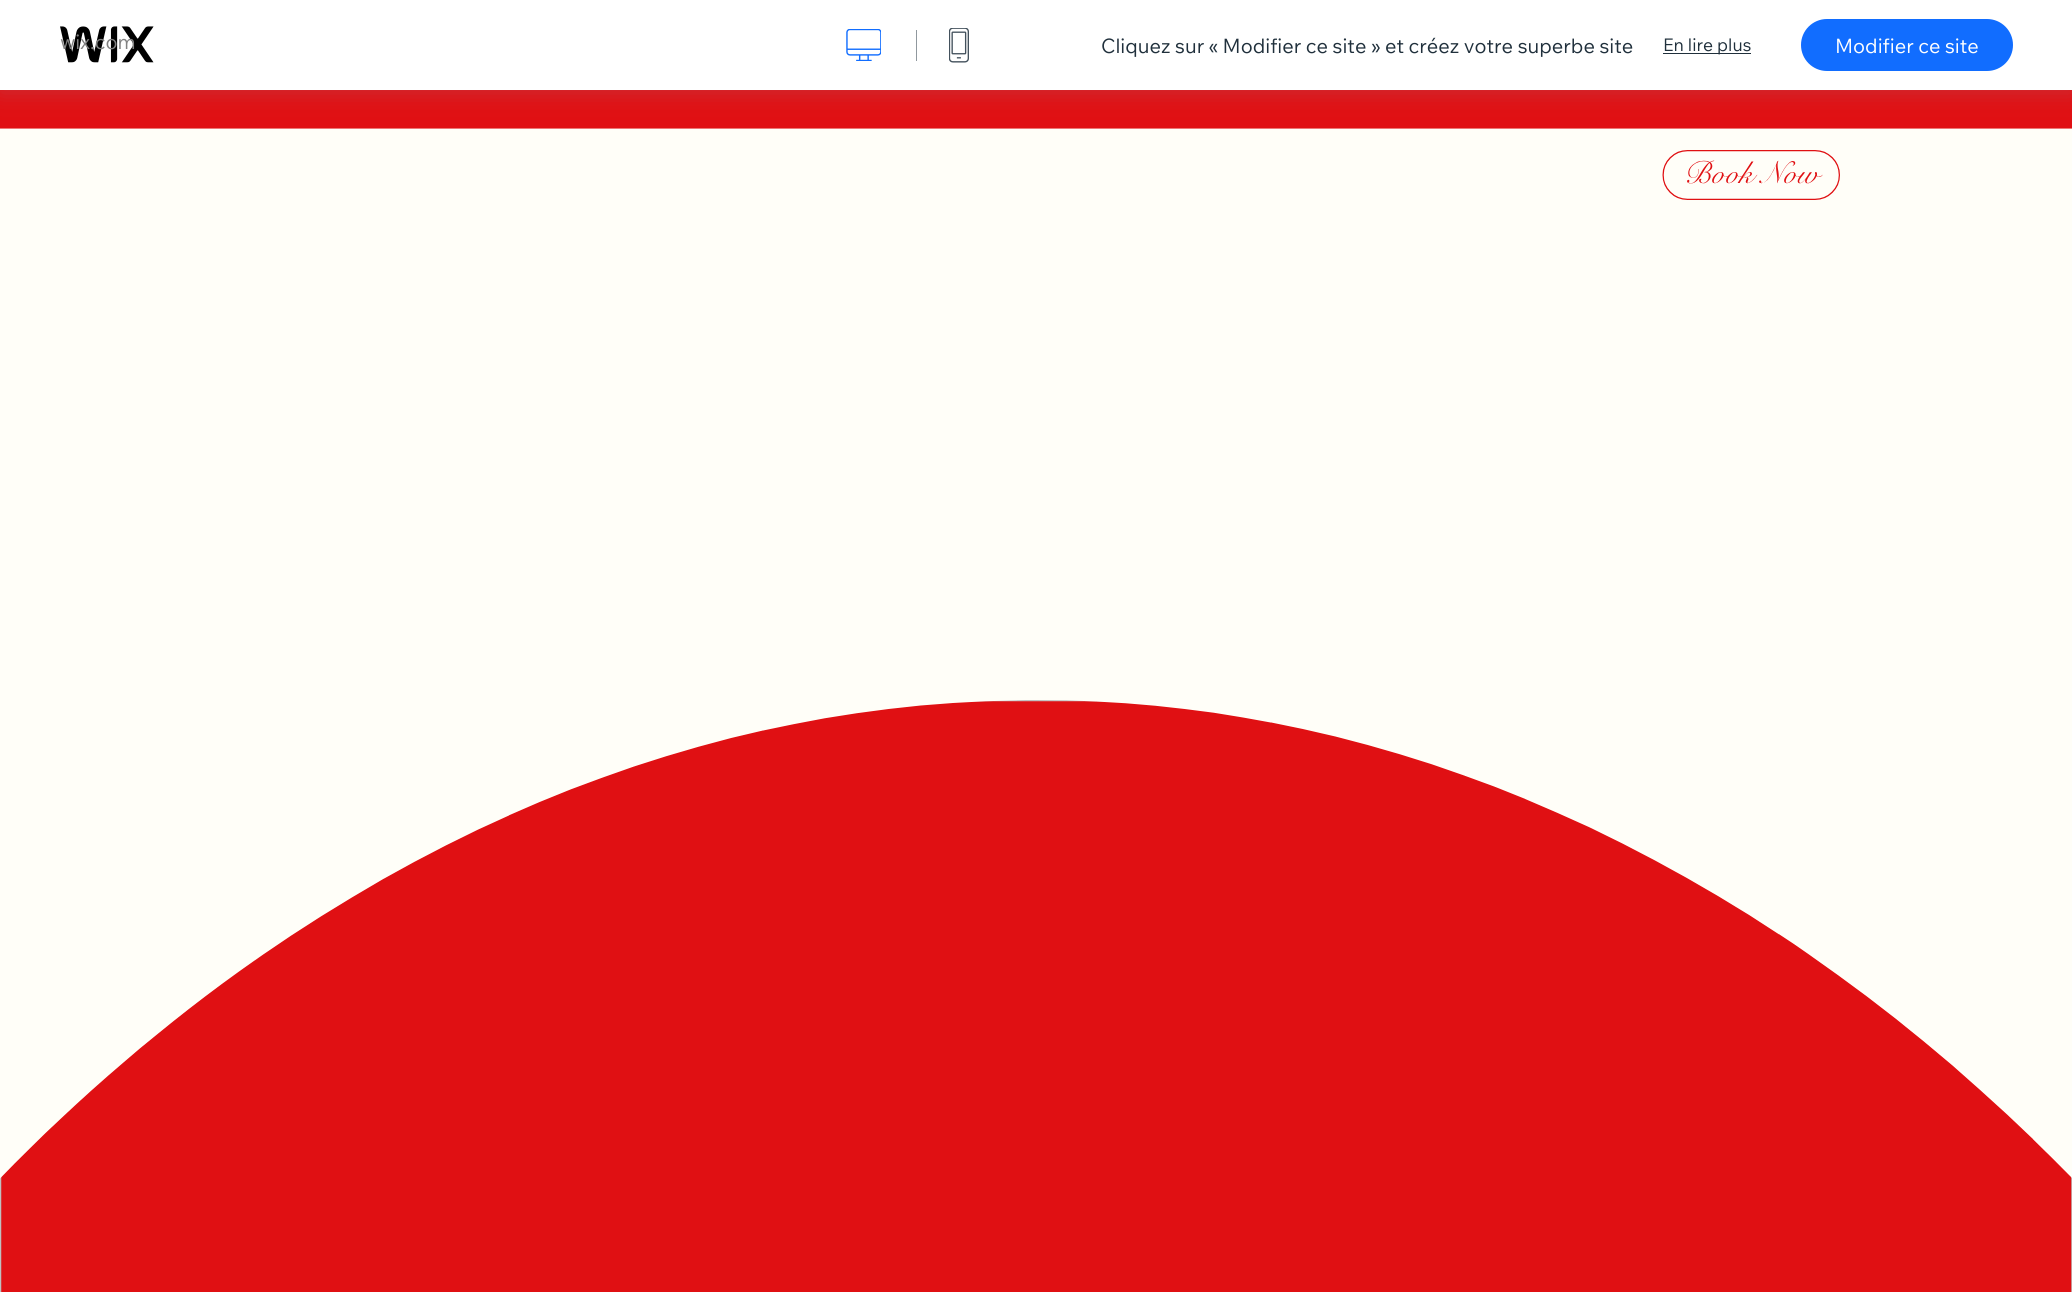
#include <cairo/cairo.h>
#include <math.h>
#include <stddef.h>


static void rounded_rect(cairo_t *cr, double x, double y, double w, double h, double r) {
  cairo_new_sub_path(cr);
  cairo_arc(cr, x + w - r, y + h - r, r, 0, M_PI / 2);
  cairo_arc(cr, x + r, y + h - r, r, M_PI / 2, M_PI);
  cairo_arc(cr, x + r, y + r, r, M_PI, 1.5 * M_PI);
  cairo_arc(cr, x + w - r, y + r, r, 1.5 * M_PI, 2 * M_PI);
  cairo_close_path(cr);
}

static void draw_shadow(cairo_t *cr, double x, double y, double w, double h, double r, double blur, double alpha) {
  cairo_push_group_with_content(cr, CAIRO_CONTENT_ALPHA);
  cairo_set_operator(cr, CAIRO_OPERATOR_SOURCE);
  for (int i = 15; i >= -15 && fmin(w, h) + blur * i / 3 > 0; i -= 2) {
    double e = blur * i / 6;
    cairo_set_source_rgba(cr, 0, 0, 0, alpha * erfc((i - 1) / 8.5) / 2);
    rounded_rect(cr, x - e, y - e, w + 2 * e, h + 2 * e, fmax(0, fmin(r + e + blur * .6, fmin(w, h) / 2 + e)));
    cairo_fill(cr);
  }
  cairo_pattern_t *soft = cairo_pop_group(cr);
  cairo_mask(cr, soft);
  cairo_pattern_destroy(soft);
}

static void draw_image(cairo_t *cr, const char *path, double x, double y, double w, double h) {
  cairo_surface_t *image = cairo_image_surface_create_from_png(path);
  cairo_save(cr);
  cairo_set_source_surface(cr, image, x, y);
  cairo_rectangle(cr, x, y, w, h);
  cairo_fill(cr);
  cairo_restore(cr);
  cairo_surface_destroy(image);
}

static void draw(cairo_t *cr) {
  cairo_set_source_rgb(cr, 1, 1, 1);
  cairo_paint(cr);
  draw_image(cr, "images/4.png", 0, 90, 2072, 1202);
  cairo_set_source_rgb(cr, 129 / 255.0, 162 / 255.0, 182 / 255.0);
  draw_shadow(cr, 0, 3, 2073, 90, 0, 11, 0.2);
  cairo_set_source_rgb(cr, 1, 1, 1);
  cairo_rectangle(cr, 0, 0, 2072, 90);
  cairo_fill(cr);
  draw_image(cr, "images/1.png", 60, 26, 94, 37);
  draw_image(cr, "images/2.png", 846, 29, 35, 32);
  cairo_set_source_rgb(cr, 144 / 255.0, 152 / 255.0, 158 / 255.0);
  cairo_rectangle(cr, 916, 30, 1, 31);
  cairo_fill(cr);
  draw_image(cr, "images/3.png", 949, 28, 20, 35);
  cairo_set_source_rgb(cr, 32 / 255.0, 48 / 255.0, 60 / 255.0);
  cairo_rectangle(cr, 1663, 53, 88, 1);
  cairo_fill(cr);
  cairo_set_source_rgb(cr, 17 / 255.0, 109 / 255.0, 1);
  rounded_rect(cr, 1801, 19, 212, 52, 26);
  cairo_fill(cr);
  cairo_select_font_face(cr, "Wix Madefor Text", CAIRO_FONT_SLANT_NORMAL, CAIRO_FONT_WEIGHT_NORMAL);
  cairo_set_font_size(cr, 20);
  cairo_set_source_rgb(cr, 129 / 255.0, 129 / 255.0, 129 / 255.0);
  cairo_move_to(cr, 60, 49);
  cairo_show_text(cr, "wix.com");
  cairo_set_source_rgb(cr, 32 / 255.0, 48 / 255.0, 60 / 255.0);
  cairo_move_to(cr, 1101, 53);
  cairo_show_text(cr, "Cliquez sur « Modifier ce site » et créez votre superbe site");
  cairo_set_font_size(cr, 17.5);
  cairo_move_to(cr, 1663, 51);
  cairo_show_text(cr, "En lire plus");
  cairo_set_font_size(cr, 20);
  cairo_set_source_rgb(cr, 1, 1, 1);
  cairo_move_to(cr, 1835, 53);
  cairo_show_text(cr, "Modifier ce site");
}

int main(void) {
  cairo_surface_t *surface = cairo_image_surface_create(CAIRO_FORMAT_RGB24, 2072, 1292);
  cairo_t *cr = cairo_create(surface);
  cairo_font_options_t *options = cairo_font_options_create();
  cairo_font_options_set_hint_metrics(options, CAIRO_HINT_METRICS_OFF);
  cairo_font_options_set_hint_style(options, CAIRO_HINT_STYLE_NONE);
  cairo_set_font_options(cr, options);
  cairo_set_miter_limit(cr, 4);
  draw(cr);
  cairo_surface_write_to_png(surface, "out.png");
  cairo_font_options_destroy(options);
  cairo_destroy(cr);
  cairo_surface_destroy(surface);
  return 0;
}
